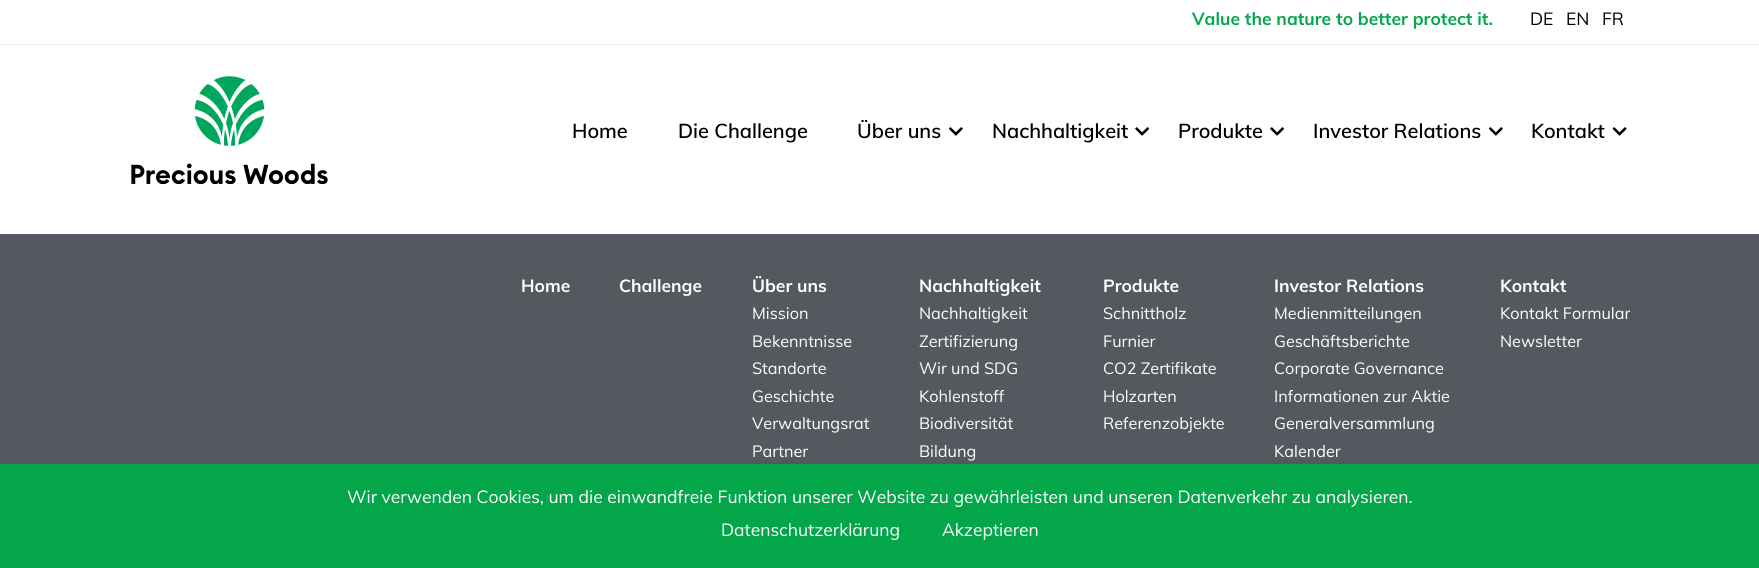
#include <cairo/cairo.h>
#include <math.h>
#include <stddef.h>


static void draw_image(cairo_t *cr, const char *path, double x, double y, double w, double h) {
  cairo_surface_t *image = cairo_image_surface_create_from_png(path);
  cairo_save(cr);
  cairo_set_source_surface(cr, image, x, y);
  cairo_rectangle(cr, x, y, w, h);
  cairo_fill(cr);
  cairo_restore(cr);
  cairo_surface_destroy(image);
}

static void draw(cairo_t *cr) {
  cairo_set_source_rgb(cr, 1, 1, 1);
  cairo_paint(cr);
  cairo_set_source_rgb(cr, 235 / 255.0, 235 / 255.0, 235 / 255.0);
  cairo_rectangle(cr, 0, 44, 1759, 1);
  cairo_fill(cr);
  draw_image(cr, "images/1.png", 131, 76, 197, 108);
  draw_image(cr, "images/2.png", 949, 127, 14, 9);
  draw_image(cr, "images/3.png", 1135, 127, 14, 9);
  draw_image(cr, "images/3.png", 1270, 127, 14, 9);
  draw_image(cr, "images/2.png", 1489, 127, 14, 9);
  draw_image(cr, "images/4.png", 1612, 127, 15, 9);
  cairo_set_source_rgb(cr, 84 / 255.0, 89 / 255.0, 95 / 255.0);
  cairo_rectangle(cr, 0, 234, 1759, 230);
  cairo_fill(cr);
  cairo_set_source_rgb(cr, 4 / 255.0, 166 / 255.0, 74 / 255.0);
  cairo_rectangle(cr, 0, 464, 1759, 104);
  cairo_fill(cr);
  cairo_select_font_face(cr, "Muli", CAIRO_FONT_SLANT_NORMAL, CAIRO_FONT_WEIGHT_BOLD);
  cairo_set_font_size(cr, 17.5);
  cairo_set_source_rgb(cr, 3 / 255.0, 166 / 255.0, 74 / 255.0);
  cairo_move_to(cr, 1192, 25);
  cairo_show_text(cr, "Value the nature to better protect it.");
  cairo_select_font_face(cr, "Muli", CAIRO_FONT_SLANT_NORMAL, CAIRO_FONT_WEIGHT_NORMAL);
  cairo_set_source_rgb(cr, 0, 0, 0);
  cairo_move_to(cr, 1530, 25);
  cairo_show_text(cr, "DE");
  cairo_move_to(cr, 1566, 25);
  cairo_show_text(cr, "EN");
  cairo_move_to(cr, 1602, 25);
  cairo_show_text(cr, "FR");
  cairo_select_font_face(cr, "Muli SemiBold", CAIRO_FONT_SLANT_NORMAL, CAIRO_FONT_WEIGHT_NORMAL);
  cairo_set_font_size(cr, 20);
  cairo_move_to(cr, 572, 138);
  cairo_show_text(cr, "Home");
  cairo_move_to(cr, 678, 138);
  cairo_show_text(cr, "Die Challenge");
  cairo_move_to(cr, 857, 138);
  cairo_show_text(cr, "Über uns");
  cairo_move_to(cr, 992, 138);
  cairo_show_text(cr, "Nachhaltigkeit");
  cairo_move_to(cr, 1178, 138);
  cairo_show_text(cr, "Produkte");
  cairo_move_to(cr, 1313, 138);
  cairo_show_text(cr, "Investor Relations");
  cairo_move_to(cr, 1531, 138);
  cairo_show_text(cr, "Kontakt");
  cairo_select_font_face(cr, "Muli", CAIRO_FONT_SLANT_NORMAL, CAIRO_FONT_WEIGHT_BOLD);
  cairo_set_font_size(cr, 17.5);
  cairo_set_source_rgb(cr, 1, 1, 1);
  cairo_move_to(cr, 521, 292);
  cairo_show_text(cr, "Home");
  cairo_move_to(cr, 619, 292);
  cairo_show_text(cr, "Challenge");
  cairo_move_to(cr, 752, 292);
  cairo_show_text(cr, "Über uns");
  cairo_select_font_face(cr, "Muli", CAIRO_FONT_SLANT_NORMAL, CAIRO_FONT_WEIGHT_NORMAL);
  cairo_set_font_size(cr, 16.25);
  cairo_move_to(cr, 752, 319);
  cairo_show_text(cr, "Mission");
  cairo_move_to(cr, 752, 347);
  cairo_show_text(cr, "Bekenntnisse");
  cairo_move_to(cr, 752, 374);
  cairo_show_text(cr, "Standorte");
  cairo_move_to(cr, 752, 402);
  cairo_show_text(cr, "Geschichte");
  cairo_move_to(cr, 752, 429);
  cairo_show_text(cr, "Verwaltungsrat");
  cairo_move_to(cr, 752, 457);
  cairo_show_text(cr, "Partner");
  cairo_select_font_face(cr, "Muli", CAIRO_FONT_SLANT_NORMAL, CAIRO_FONT_WEIGHT_BOLD);
  cairo_set_font_size(cr, 17.5);
  cairo_move_to(cr, 919, 292);
  cairo_show_text(cr, "Nachhaltigkeit");
  cairo_select_font_face(cr, "Muli", CAIRO_FONT_SLANT_NORMAL, CAIRO_FONT_WEIGHT_NORMAL);
  cairo_set_font_size(cr, 16.25);
  cairo_move_to(cr, 919, 319);
  cairo_show_text(cr, "Nachhaltigkeit");
  cairo_move_to(cr, 919, 347);
  cairo_show_text(cr, "Zertifizierung");
  cairo_move_to(cr, 919, 374);
  cairo_show_text(cr, "Wir und SDG");
  cairo_move_to(cr, 919, 402);
  cairo_show_text(cr, "Kohlenstoff");
  cairo_move_to(cr, 919, 429);
  cairo_show_text(cr, "Biodiversität");
  cairo_move_to(cr, 919, 457);
  cairo_show_text(cr, "Bildung");
  cairo_select_font_face(cr, "Muli", CAIRO_FONT_SLANT_NORMAL, CAIRO_FONT_WEIGHT_BOLD);
  cairo_set_font_size(cr, 17.5);
  cairo_move_to(cr, 1103, 292);
  cairo_show_text(cr, "Produkte");
  cairo_select_font_face(cr, "Muli", CAIRO_FONT_SLANT_NORMAL, CAIRO_FONT_WEIGHT_NORMAL);
  cairo_set_font_size(cr, 16.25);
  cairo_move_to(cr, 1103, 319);
  cairo_show_text(cr, "Schnittholz");
  cairo_move_to(cr, 1103, 347);
  cairo_show_text(cr, "Furnier");
  cairo_move_to(cr, 1103, 374);
  cairo_show_text(cr, "CO2 Zertifikate");
  cairo_move_to(cr, 1103, 402);
  cairo_show_text(cr, "Holzarten");
  cairo_move_to(cr, 1103, 429);
  cairo_show_text(cr, "Referenzobjekte");
  cairo_select_font_face(cr, "Muli", CAIRO_FONT_SLANT_NORMAL, CAIRO_FONT_WEIGHT_BOLD);
  cairo_set_font_size(cr, 17.5);
  cairo_move_to(cr, 1274, 292);
  cairo_show_text(cr, "Investor Relations");
  cairo_select_font_face(cr, "Muli", CAIRO_FONT_SLANT_NORMAL, CAIRO_FONT_WEIGHT_NORMAL);
  cairo_set_font_size(cr, 16.25);
  cairo_move_to(cr, 1274, 319);
  cairo_show_text(cr, "Medienmitteilungen");
  cairo_move_to(cr, 1274, 347);
  cairo_show_text(cr, "Geschäftsberichte");
  cairo_move_to(cr, 1274, 374);
  cairo_show_text(cr, "Corporate Governance");
  cairo_move_to(cr, 1274, 402);
  cairo_show_text(cr, "Informationen zur Aktie");
  cairo_move_to(cr, 1274, 429);
  cairo_show_text(cr, "Generalversammlung");
  cairo_move_to(cr, 1274, 457);
  cairo_show_text(cr, "Kalender");
  cairo_select_font_face(cr, "Muli", CAIRO_FONT_SLANT_NORMAL, CAIRO_FONT_WEIGHT_BOLD);
  cairo_set_font_size(cr, 17.5);
  cairo_move_to(cr, 1500, 292);
  cairo_show_text(cr, "Kontakt");
  cairo_select_font_face(cr, "Muli", CAIRO_FONT_SLANT_NORMAL, CAIRO_FONT_WEIGHT_NORMAL);
  cairo_set_font_size(cr, 16.25);
  cairo_move_to(cr, 1500, 319);
  cairo_show_text(cr, "Kontakt Formular");
  cairo_move_to(cr, 1500, 347);
  cairo_show_text(cr, "Newsletter");
  cairo_set_font_size(cr, 17.5);
  cairo_move_to(cr, 347, 503);
  cairo_show_text(cr, "Wir verwenden Cookies, um die einwandfreie Funktion unserer Website zu gewährleisten und unseren Datenverkehr zu analysieren.");
  cairo_move_to(cr, 721, 536);
  cairo_show_text(cr, "Datenschutzerklärung");
  cairo_move_to(cr, 942, 536);
  cairo_show_text(cr, "Akzeptieren");
}

int main(void) {
  cairo_surface_t *surface = cairo_image_surface_create(CAIRO_FORMAT_RGB24, 1759, 568);
  cairo_t *cr = cairo_create(surface);
  cairo_font_options_t *options = cairo_font_options_create();
  cairo_font_options_set_hint_metrics(options, CAIRO_HINT_METRICS_OFF);
  cairo_font_options_set_hint_style(options, CAIRO_HINT_STYLE_NONE);
  cairo_set_font_options(cr, options);
  cairo_set_miter_limit(cr, 4);
  draw(cr);
  cairo_surface_write_to_png(surface, "out.png");
  cairo_font_options_destroy(options);
  cairo_destroy(cr);
  cairo_surface_destroy(surface);
  return 0;
}
